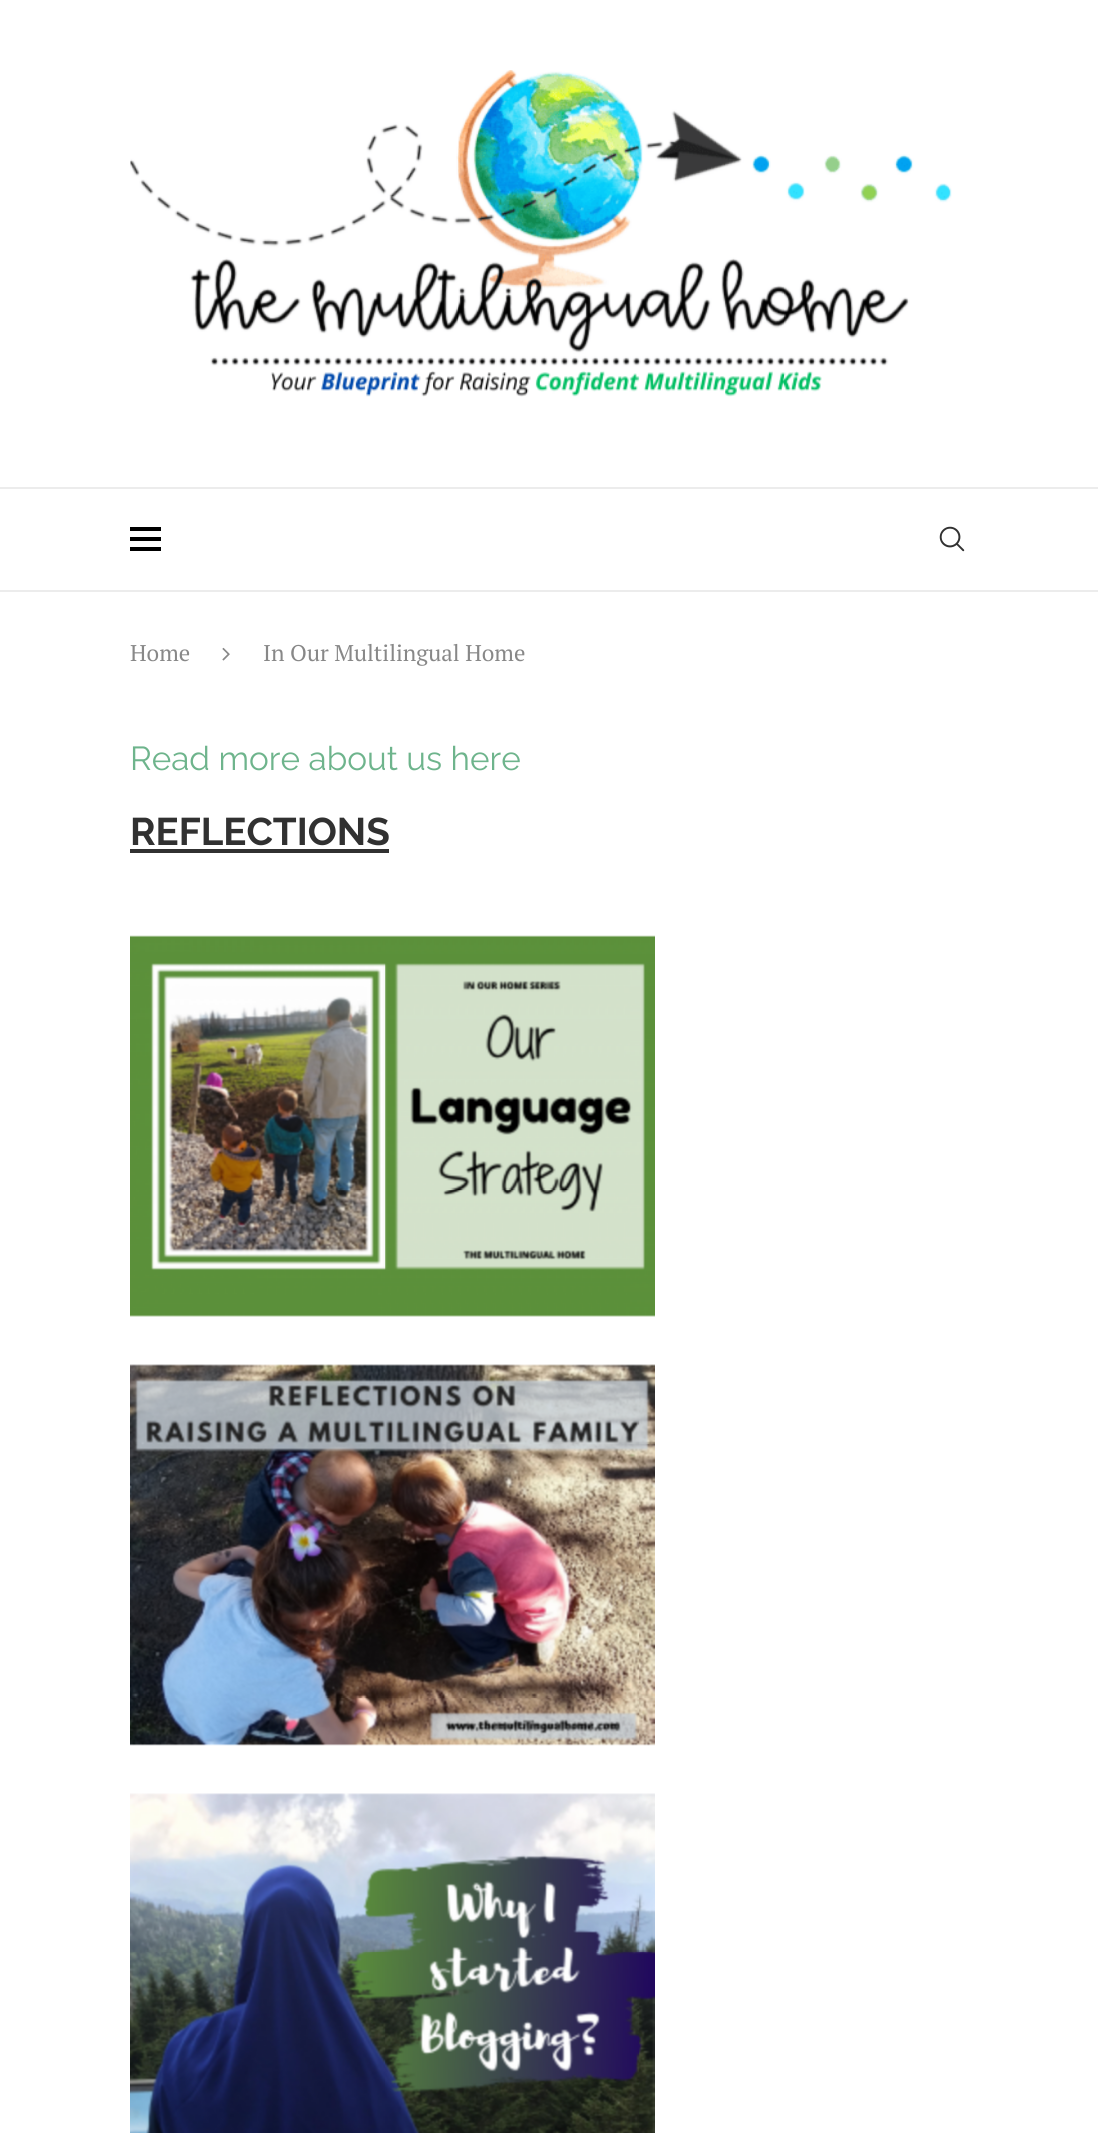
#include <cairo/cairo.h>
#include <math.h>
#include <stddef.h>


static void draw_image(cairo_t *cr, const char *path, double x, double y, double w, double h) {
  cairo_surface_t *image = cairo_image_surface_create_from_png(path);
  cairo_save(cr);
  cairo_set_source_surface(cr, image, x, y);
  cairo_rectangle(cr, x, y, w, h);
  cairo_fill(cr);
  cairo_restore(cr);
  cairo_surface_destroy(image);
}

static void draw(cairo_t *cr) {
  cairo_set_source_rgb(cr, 1, 1, 1);
  cairo_paint(cr);
  draw_image(cr, "images/1.png", 130, 70, 822, 327);
  cairo_set_source_rgb(cr, 236 / 255.0, 236 / 255.0, 236 / 255.0);
  cairo_rectangle(cr, 0, 487, 1098, 2);
  cairo_fill(cr);
  cairo_rectangle(cr, 0, 590, 1098, 2);
  cairo_fill(cr);
  cairo_set_source_rgb(cr, 0, 0, 0);
  cairo_rectangle(cr, 130, 527, 31, 4);
  cairo_fill(cr);
  cairo_rectangle(cr, 130, 537, 31, 4);
  cairo_fill(cr);
  cairo_rectangle(cr, 130, 547, 31, 4);
  cairo_fill(cr);
  draw_image(cr, "images/2.png", 939, 526, 26, 26);
  draw_image(cr, "images/3.png", 222, 647, 8, 14);
  cairo_set_source_rgb(cr, 49 / 255.0, 49 / 255.0, 49 / 255.0);
  cairo_rectangle(cr, 130, 849, 259, 4);
  cairo_fill(cr);
  draw_image(cr, "images/4.png", 130, 935, 525, 382);
  draw_image(cr, "images/5.png", 130, 1364, 525, 382);
  draw_image(cr, "images/6.png", 130, 1793, 525, 340);
  cairo_select_font_face(cr, "PT Serif", CAIRO_FONT_SLANT_NORMAL, CAIRO_FONT_WEIGHT_NORMAL);
  cairo_set_font_size(cr, 22.75);
  cairo_set_source_rgb(cr, 136 / 255.0, 136 / 255.0, 136 / 255.0);
  cairo_move_to(cr, 130, 661);
  cairo_show_text(cr, "Home");
  cairo_move_to(cr, 263, 661);
  cairo_show_text(cr, "In Our Multilingual Home");
  cairo_select_font_face(cr, "Raleway", CAIRO_FONT_SLANT_NORMAL, CAIRO_FONT_WEIGHT_NORMAL);
  cairo_set_font_size(cr, 33.25);
  cairo_set_source_rgb(cr, 110 / 255.0, 180 / 255.0, 140 / 255.0);
  cairo_move_to(cr, 130, 770);
  cairo_show_text(cr, "Read more about us here");
  cairo_select_font_face(cr, "Raleway", CAIRO_FONT_SLANT_NORMAL, CAIRO_FONT_WEIGHT_BOLD);
  cairo_set_font_size(cr, 38.5);
  cairo_set_source_rgb(cr, 49 / 255.0, 49 / 255.0, 49 / 255.0);
  cairo_move_to(cr, 130, 845);
  cairo_show_text(cr, "REFLECTIONS");
}

int main(void) {
  cairo_surface_t *surface = cairo_image_surface_create(CAIRO_FORMAT_RGB24, 1098, 2133);
  cairo_t *cr = cairo_create(surface);
  cairo_font_options_t *options = cairo_font_options_create();
  cairo_font_options_set_hint_metrics(options, CAIRO_HINT_METRICS_OFF);
  cairo_font_options_set_hint_style(options, CAIRO_HINT_STYLE_NONE);
  cairo_set_font_options(cr, options);
  cairo_set_miter_limit(cr, 4);
  draw(cr);
  cairo_surface_write_to_png(surface, "out.png");
  cairo_font_options_destroy(options);
  cairo_destroy(cr);
  cairo_surface_destroy(surface);
  return 0;
}
